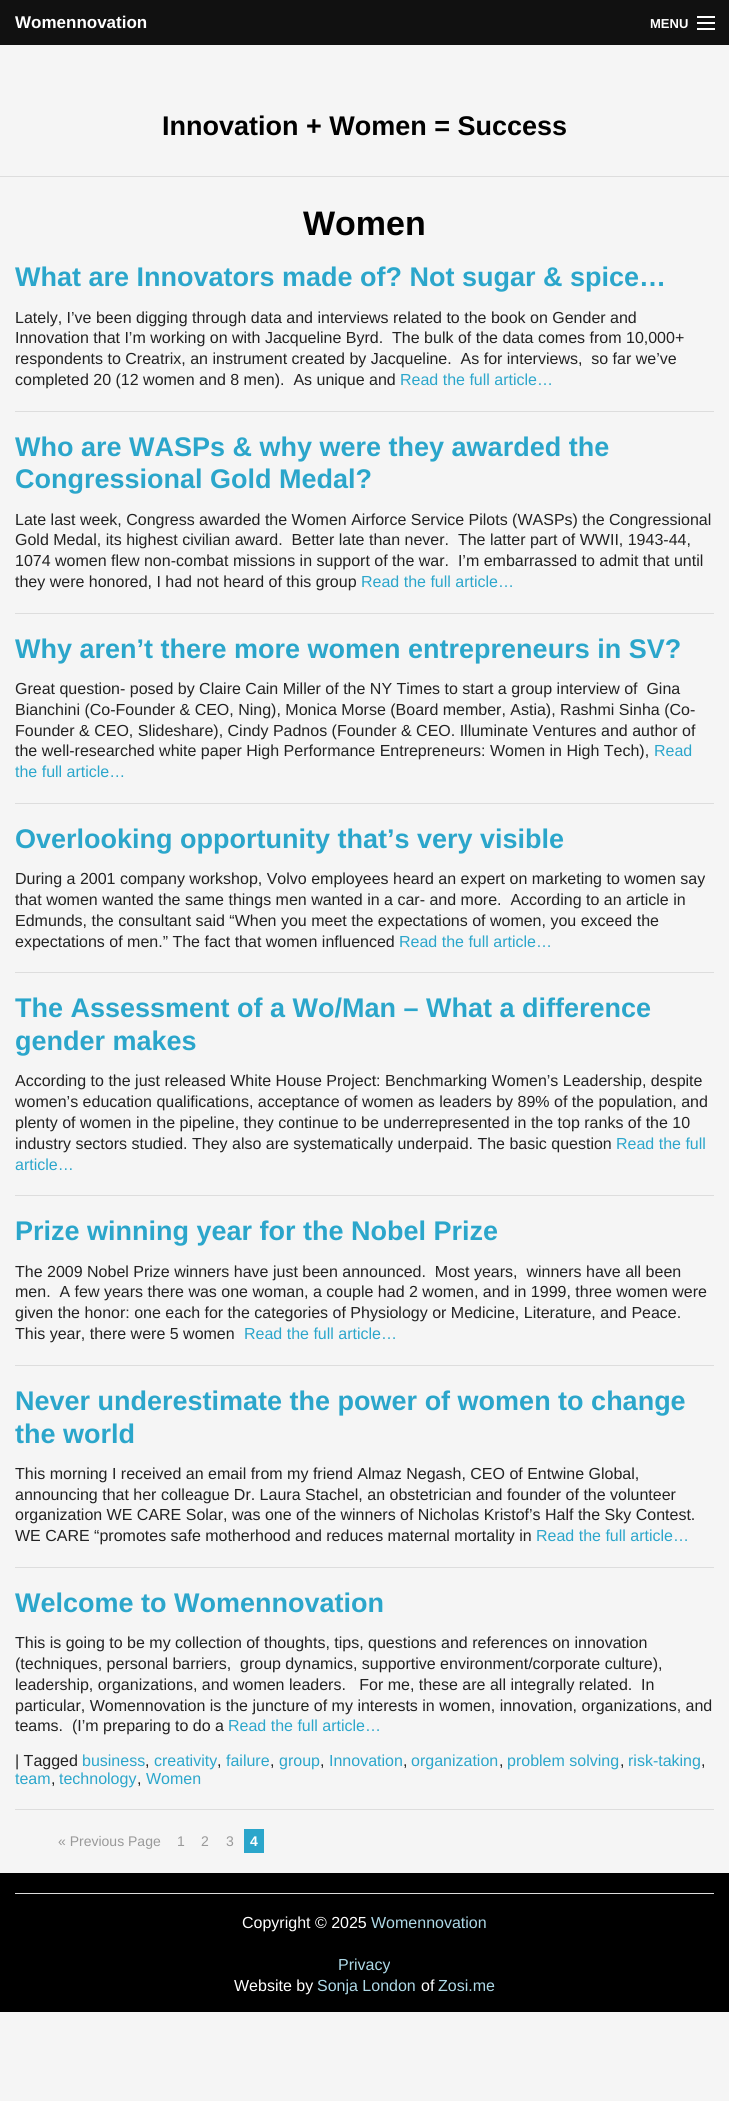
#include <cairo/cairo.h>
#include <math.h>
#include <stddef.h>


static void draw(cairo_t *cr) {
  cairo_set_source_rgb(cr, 245 / 255.0, 245 / 255.0, 245 / 255.0);
  cairo_paint(cr);
  cairo_set_source_rgb(cr, 17 / 255.0, 17 / 255.0, 17 / 255.0);
  cairo_rectangle(cr, 0, 0, 729, 45);
  cairo_fill(cr);
  cairo_set_source_rgb(cr, 1, 1, 1);
  cairo_rectangle(cr, 697, 28, 18, 2);
  cairo_fill(cr);
  cairo_rectangle(cr, 697, 22, 18, 2);
  cairo_fill(cr);
  cairo_rectangle(cr, 697, 16, 18, 2);
  cairo_fill(cr);
  cairo_set_source_rgb(cr, 221 / 255.0, 221 / 255.0, 221 / 255.0);
  cairo_rectangle(cr, 0, 176, 729, 1);
  cairo_fill(cr);
  cairo_rectangle(cr, 15, 411, 699, 1);
  cairo_fill(cr);
  cairo_rectangle(cr, 15, 613, 699, 1);
  cairo_fill(cr);
  cairo_rectangle(cr, 15, 803, 699, 1);
  cairo_fill(cr);
  cairo_rectangle(cr, 15, 972, 699, 1);
  cairo_fill(cr);
  cairo_rectangle(cr, 15, 1195, 699, 1);
  cairo_fill(cr);
  cairo_rectangle(cr, 15, 1365, 699, 1);
  cairo_fill(cr);
  cairo_rectangle(cr, 15, 1567, 699, 1);
  cairo_fill(cr);
  cairo_rectangle(cr, 15, 1809, 699, 1);
  cairo_fill(cr);
  cairo_set_source_rgb(cr, 43 / 255.0, 166 / 255.0, 203 / 255.0);
  cairo_rectangle(cr, 244, 1829, 20, 24);
  cairo_fill(cr);
  cairo_set_source_rgb(cr, 0, 0, 0);
  cairo_rectangle(cr, 0, 1873, 729, 139);
  cairo_fill(cr);
  cairo_set_source_rgb(cr, 221 / 255.0, 221 / 255.0, 221 / 255.0);
  cairo_rectangle(cr, 15, 1893, 699, 1);
  cairo_fill(cr);
  cairo_select_font_face(cr, "Liberation Sans", CAIRO_FONT_SLANT_NORMAL, CAIRO_FONT_WEIGHT_BOLD);
  cairo_set_font_size(cr, 17);
  cairo_set_source_rgb(cr, 1, 1, 1);
  cairo_move_to(cr, 15, 28);
  cairo_show_text(cr, "Womennovation");
  cairo_set_font_size(cr, 13);
  cairo_move_to(cr, 650, 28);
  cairo_show_text(cr, "MENU");
  cairo_set_font_size(cr, 27);
  cairo_set_source_rgb(cr, 0, 0, 0);
  cairo_move_to(cr, 162, 135);
  cairo_show_text(cr, "Innovation + Women = Success");
  cairo_set_font_size(cr, 34);
  cairo_move_to(cr, 303, 235);
  cairo_show_text(cr, "Women");
  cairo_set_font_size(cr, 27);
  cairo_set_source_rgb(cr, 43 / 255.0, 166 / 255.0, 203 / 255.0);
  cairo_move_to(cr, 15, 286);
  cairo_show_text(cr, "What are Innovators made of? Not sugar & spice…");
  cairo_select_font_face(cr, "Liberation Sans", CAIRO_FONT_SLANT_NORMAL, CAIRO_FONT_WEIGHT_NORMAL);
  cairo_set_font_size(cr, 16);
  cairo_set_source_rgb(cr, 34 / 255.0, 34 / 255.0, 34 / 255.0);
  cairo_move_to(cr, 15, 323);
  cairo_show_text(cr, "Lately, I’ve been digging through data and interviews related to the book on Gender and");
  cairo_move_to(cr, 15, 343);
  cairo_show_text(cr, "Innovation that I’m working on with Jacqueline Byrd.  The bulk of the data comes from 10,000+");
  cairo_move_to(cr, 15, 364);
  cairo_show_text(cr, "respondents to Creatrix, an instrument created by Jacqueline.  As for interviews,  so far we’ve");
  cairo_move_to(cr, 15, 385);
  cairo_show_text(cr, "completed 20 (12 women and 8 men).  As unique and");
  cairo_set_source_rgb(cr, 43 / 255.0, 166 / 255.0, 203 / 255.0);
  cairo_move_to(cr, 400, 385);
  cairo_show_text(cr, "Read the full article…");
  cairo_select_font_face(cr, "Liberation Sans", CAIRO_FONT_SLANT_NORMAL, CAIRO_FONT_WEIGHT_BOLD);
  cairo_set_font_size(cr, 27);
  cairo_move_to(cr, 15, 456);
  cairo_show_text(cr, "Who are WASPs & why were they awarded the");
  cairo_move_to(cr, 15, 488);
  cairo_show_text(cr, "Congressional Gold Medal?");
  cairo_select_font_face(cr, "Liberation Sans", CAIRO_FONT_SLANT_NORMAL, CAIRO_FONT_WEIGHT_NORMAL);
  cairo_set_font_size(cr, 16);
  cairo_set_source_rgb(cr, 34 / 255.0, 34 / 255.0, 34 / 255.0);
  cairo_move_to(cr, 15, 525);
  cairo_show_text(cr, "Late last week, Congress awarded the Women Airforce Service Pilots (WASPs) the Congressional");
  cairo_move_to(cr, 15, 545);
  cairo_show_text(cr, "Gold Medal, its highest civilian award.  Better late than never.  The latter part of WWII, 1943-44,");
  cairo_move_to(cr, 15, 566);
  cairo_show_text(cr, "1074 women flew non-combat missions in support of the war.  I’m embarrassed to admit that until");
  cairo_move_to(cr, 15, 587);
  cairo_show_text(cr, "they were honored, I had not heard of this group");
  cairo_set_source_rgb(cr, 43 / 255.0, 166 / 255.0, 203 / 255.0);
  cairo_move_to(cr, 361, 587);
  cairo_show_text(cr, "Read the full article…");
  cairo_select_font_face(cr, "Liberation Sans", CAIRO_FONT_SLANT_NORMAL, CAIRO_FONT_WEIGHT_BOLD);
  cairo_set_font_size(cr, 27);
  cairo_move_to(cr, 15, 658);
  cairo_show_text(cr, "Why aren’t there more women entrepreneurs in SV?");
  cairo_select_font_face(cr, "Liberation Sans", CAIRO_FONT_SLANT_NORMAL, CAIRO_FONT_WEIGHT_NORMAL);
  cairo_set_font_size(cr, 16);
  cairo_set_source_rgb(cr, 34 / 255.0, 34 / 255.0, 34 / 255.0);
  cairo_move_to(cr, 15, 694);
  cairo_show_text(cr, "Great question- posed by Claire Cain Miller of the NY Times to start a group interview of  Gina");
  cairo_move_to(cr, 15, 715);
  cairo_show_text(cr, "Bianchini (Co-Founder & CEO, Ning), Monica Morse (Board member, Astia), Rashmi Sinha (Co-");
  cairo_move_to(cr, 15, 736);
  cairo_show_text(cr, "Founder & CEO, Slideshare), Cindy Padnos (Founder & CEO. Illuminate Ventures and author of");
  cairo_move_to(cr, 15, 756);
  cairo_show_text(cr, "the well-researched white paper High Performance Entrepreneurs: Women in High Tech),");
  cairo_set_source_rgb(cr, 43 / 255.0, 166 / 255.0, 203 / 255.0);
  cairo_move_to(cr, 654, 756);
  cairo_show_text(cr, "Read");
  cairo_move_to(cr, 15, 777);
  cairo_show_text(cr, "the full article…");
  cairo_select_font_face(cr, "Liberation Sans", CAIRO_FONT_SLANT_NORMAL, CAIRO_FONT_WEIGHT_BOLD);
  cairo_set_font_size(cr, 27);
  cairo_move_to(cr, 15, 848);
  cairo_show_text(cr, "Overlooking opportunity that’s very visible");
  cairo_select_font_face(cr, "Liberation Sans", CAIRO_FONT_SLANT_NORMAL, CAIRO_FONT_WEIGHT_NORMAL);
  cairo_set_font_size(cr, 16);
  cairo_set_source_rgb(cr, 34 / 255.0, 34 / 255.0, 34 / 255.0);
  cairo_move_to(cr, 15, 884);
  cairo_show_text(cr, "During a 2001 company workshop, Volvo employees heard an expert on marketing to women say");
  cairo_move_to(cr, 15, 905);
  cairo_show_text(cr, "that women wanted the same things men wanted in a car- and more.  According to an article in");
  cairo_move_to(cr, 15, 926);
  cairo_show_text(cr, "Edmunds, the consultant said “When you meet the expectations of women, you exceed the");
  cairo_move_to(cr, 15, 947);
  cairo_show_text(cr, "expectations of men.” The fact that women influenced");
  cairo_set_source_rgb(cr, 43 / 255.0, 166 / 255.0, 203 / 255.0);
  cairo_move_to(cr, 399, 947);
  cairo_show_text(cr, "Read the full article…");
  cairo_select_font_face(cr, "Liberation Sans", CAIRO_FONT_SLANT_NORMAL, CAIRO_FONT_WEIGHT_BOLD);
  cairo_set_font_size(cr, 27);
  cairo_move_to(cr, 15, 1017);
  cairo_show_text(cr, "The Assessment of a Wo/Man – What a difference");
  cairo_move_to(cr, 15, 1050);
  cairo_show_text(cr, "gender makes");
  cairo_select_font_face(cr, "Liberation Sans", CAIRO_FONT_SLANT_NORMAL, CAIRO_FONT_WEIGHT_NORMAL);
  cairo_set_font_size(cr, 16);
  cairo_set_source_rgb(cr, 34 / 255.0, 34 / 255.0, 34 / 255.0);
  cairo_move_to(cr, 15, 1086);
  cairo_show_text(cr, "According to the just released White House Project: Benchmarking Women’s Leadership, despite");
  cairo_move_to(cr, 15, 1107);
  cairo_show_text(cr, "women’s education qualifications, acceptance of women as leaders by 89% of the population, and");
  cairo_move_to(cr, 15, 1128);
  cairo_show_text(cr, "plenty of women in the pipeline, they continue to be underrepresented in the top ranks of the 10");
  cairo_move_to(cr, 15, 1149);
  cairo_show_text(cr, "industry sectors studied. They also are systematically underpaid. The basic question");
  cairo_set_source_rgb(cr, 43 / 255.0, 166 / 255.0, 203 / 255.0);
  cairo_move_to(cr, 616, 1149);
  cairo_show_text(cr, "Read the full");
  cairo_move_to(cr, 15, 1170);
  cairo_show_text(cr, "article…");
  cairo_select_font_face(cr, "Liberation Sans", CAIRO_FONT_SLANT_NORMAL, CAIRO_FONT_WEIGHT_BOLD);
  cairo_set_font_size(cr, 27);
  cairo_move_to(cr, 15, 1240);
  cairo_show_text(cr, "Prize winning year for the Nobel Prize");
  cairo_select_font_face(cr, "Liberation Sans", CAIRO_FONT_SLANT_NORMAL, CAIRO_FONT_WEIGHT_NORMAL);
  cairo_set_font_size(cr, 16);
  cairo_set_source_rgb(cr, 34 / 255.0, 34 / 255.0, 34 / 255.0);
  cairo_move_to(cr, 15, 1277);
  cairo_show_text(cr, "The 2009 Nobel Prize winners have just been announced.  Most years,  winners have all been");
  cairo_move_to(cr, 15, 1297);
  cairo_show_text(cr, "men.  A few years there was one woman, a couple had 2 women, and in 1999, three women were");
  cairo_move_to(cr, 15, 1318);
  cairo_show_text(cr, "given the honor: one each for the categories of Physiology or Medicine, Literature, and Peace.");
  cairo_move_to(cr, 15, 1339);
  cairo_show_text(cr, "This year, there were 5 women");
  cairo_set_source_rgb(cr, 43 / 255.0, 166 / 255.0, 203 / 255.0);
  cairo_move_to(cr, 244, 1339);
  cairo_show_text(cr, "Read the full article…");
  cairo_select_font_face(cr, "Liberation Sans", CAIRO_FONT_SLANT_NORMAL, CAIRO_FONT_WEIGHT_BOLD);
  cairo_set_font_size(cr, 27);
  cairo_move_to(cr, 15, 1410);
  cairo_show_text(cr, "Never underestimate the power of women to change");
  cairo_move_to(cr, 15, 1443);
  cairo_show_text(cr, "the world");
  cairo_select_font_face(cr, "Liberation Sans", CAIRO_FONT_SLANT_NORMAL, CAIRO_FONT_WEIGHT_NORMAL);
  cairo_set_font_size(cr, 16);
  cairo_set_source_rgb(cr, 34 / 255.0, 34 / 255.0, 34 / 255.0);
  cairo_move_to(cr, 15, 1479);
  cairo_show_text(cr, "This morning I received an email from my friend Almaz Negash, CEO of Entwine Global,");
  cairo_move_to(cr, 15, 1500);
  cairo_show_text(cr, "announcing that her colleague Dr. Laura Stachel, an obstetrician and founder of the volunteer");
  cairo_move_to(cr, 15, 1520);
  cairo_show_text(cr, "organization WE CARE Solar, was one of the winners of Nicholas Kristof’s Half the Sky Contest.");
  cairo_move_to(cr, 15, 1541);
  cairo_show_text(cr, "WE CARE “promotes safe motherhood and reduces maternal mortality in");
  cairo_set_source_rgb(cr, 43 / 255.0, 166 / 255.0, 203 / 255.0);
  cairo_move_to(cr, 536, 1541);
  cairo_show_text(cr, "Read the full article…");
  cairo_select_font_face(cr, "Liberation Sans", CAIRO_FONT_SLANT_NORMAL, CAIRO_FONT_WEIGHT_BOLD);
  cairo_set_font_size(cr, 27);
  cairo_move_to(cr, 15, 1612);
  cairo_show_text(cr, "Welcome to Womennovation");
  cairo_select_font_face(cr, "Liberation Sans", CAIRO_FONT_SLANT_NORMAL, CAIRO_FONT_WEIGHT_NORMAL);
  cairo_set_font_size(cr, 16);
  cairo_set_source_rgb(cr, 34 / 255.0, 34 / 255.0, 34 / 255.0);
  cairo_move_to(cr, 15, 1648);
  cairo_show_text(cr, "This is going to be my collection of thoughts, tips, questions and references on innovation");
  cairo_move_to(cr, 15, 1669);
  cairo_show_text(cr, "(techniques, personal barriers,  group dynamics, supportive environment/corporate culture),");
  cairo_move_to(cr, 15, 1690);
  cairo_show_text(cr, "leadership, organizations, and women leaders.   For me, these are all integrally related.  In");
  cairo_move_to(cr, 15, 1711);
  cairo_show_text(cr, "particular, Womennovation is the juncture of my interests in women, innovation, organizations, and");
  cairo_move_to(cr, 15, 1731);
  cairo_show_text(cr, "teams.  (I’m preparing to do a");
  cairo_set_source_rgb(cr, 43 / 255.0, 166 / 255.0, 203 / 255.0);
  cairo_move_to(cr, 228, 1731);
  cairo_show_text(cr, "Read the full article…");
  cairo_set_source_rgb(cr, 34 / 255.0, 34 / 255.0, 34 / 255.0);
  cairo_move_to(cr, 15, 1766);
  cairo_show_text(cr, "| Tagged");
  cairo_set_source_rgb(cr, 43 / 255.0, 166 / 255.0, 203 / 255.0);
  cairo_move_to(cr, 82, 1766);
  cairo_show_text(cr, "business");
  cairo_set_source_rgb(cr, 34 / 255.0, 34 / 255.0, 34 / 255.0);
  cairo_move_to(cr, 145, 1766);
  cairo_show_text(cr, ",");
  cairo_set_source_rgb(cr, 43 / 255.0, 166 / 255.0, 203 / 255.0);
  cairo_move_to(cr, 154, 1766);
  cairo_show_text(cr, "creativity");
  cairo_set_source_rgb(cr, 34 / 255.0, 34 / 255.0, 34 / 255.0);
  cairo_move_to(cr, 217, 1766);
  cairo_show_text(cr, ",");
  cairo_set_source_rgb(cr, 43 / 255.0, 166 / 255.0, 203 / 255.0);
  cairo_move_to(cr, 226, 1766);
  cairo_show_text(cr, "failure");
  cairo_set_source_rgb(cr, 34 / 255.0, 34 / 255.0, 34 / 255.0);
  cairo_move_to(cr, 270, 1766);
  cairo_show_text(cr, ",");
  cairo_set_source_rgb(cr, 43 / 255.0, 166 / 255.0, 203 / 255.0);
  cairo_move_to(cr, 279, 1766);
  cairo_show_text(cr, "group");
  cairo_set_source_rgb(cr, 34 / 255.0, 34 / 255.0, 34 / 255.0);
  cairo_move_to(cr, 320, 1766);
  cairo_show_text(cr, ",");
  cairo_set_source_rgb(cr, 43 / 255.0, 166 / 255.0, 203 / 255.0);
  cairo_move_to(cr, 329, 1766);
  cairo_show_text(cr, "Innovation");
  cairo_set_source_rgb(cr, 34 / 255.0, 34 / 255.0, 34 / 255.0);
  cairo_move_to(cr, 403, 1766);
  cairo_show_text(cr, ",");
  cairo_set_source_rgb(cr, 43 / 255.0, 166 / 255.0, 203 / 255.0);
  cairo_move_to(cr, 411, 1766);
  cairo_show_text(cr, "organization");
  cairo_set_source_rgb(cr, 34 / 255.0, 34 / 255.0, 34 / 255.0);
  cairo_move_to(cr, 499, 1766);
  cairo_show_text(cr, ",");
  cairo_set_source_rgb(cr, 43 / 255.0, 166 / 255.0, 203 / 255.0);
  cairo_move_to(cr, 507, 1766);
  cairo_show_text(cr, "problem solving");
  cairo_set_source_rgb(cr, 34 / 255.0, 34 / 255.0, 34 / 255.0);
  cairo_move_to(cr, 620, 1766);
  cairo_show_text(cr, ",");
  cairo_set_source_rgb(cr, 43 / 255.0, 166 / 255.0, 203 / 255.0);
  cairo_move_to(cr, 628, 1766);
  cairo_show_text(cr, "risk-taking");
  cairo_set_source_rgb(cr, 34 / 255.0, 34 / 255.0, 34 / 255.0);
  cairo_move_to(cr, 701, 1766);
  cairo_show_text(cr, ",");
  cairo_set_source_rgb(cr, 43 / 255.0, 166 / 255.0, 203 / 255.0);
  cairo_move_to(cr, 15, 1784);
  cairo_show_text(cr, "team");
  cairo_set_source_rgb(cr, 34 / 255.0, 34 / 255.0, 34 / 255.0);
  cairo_move_to(cr, 51, 1784);
  cairo_show_text(cr, ",");
  cairo_set_source_rgb(cr, 43 / 255.0, 166 / 255.0, 203 / 255.0);
  cairo_move_to(cr, 59, 1784);
  cairo_show_text(cr, "technology");
  cairo_set_source_rgb(cr, 34 / 255.0, 34 / 255.0, 34 / 255.0);
  cairo_move_to(cr, 137, 1784);
  cairo_show_text(cr, ",");
  cairo_set_source_rgb(cr, 43 / 255.0, 166 / 255.0, 203 / 255.0);
  cairo_move_to(cr, 146, 1784);
  cairo_show_text(cr, "Women");
  cairo_set_font_size(cr, 14);
  cairo_set_source_rgb(cr, 153 / 255.0, 153 / 255.0, 153 / 255.0);
  cairo_move_to(cr, 58, 1846);
  cairo_show_text(cr, "« Previous Page");
  cairo_move_to(cr, 177, 1846);
  cairo_show_text(cr, "1");
  cairo_move_to(cr, 201, 1846);
  cairo_show_text(cr, "2");
  cairo_move_to(cr, 226, 1846);
  cairo_show_text(cr, "3");
  cairo_select_font_face(cr, "Liberation Sans", CAIRO_FONT_SLANT_NORMAL, CAIRO_FONT_WEIGHT_BOLD);
  cairo_set_source_rgb(cr, 1, 1, 1);
  cairo_move_to(cr, 250, 1846);
  cairo_show_text(cr, "4");
  cairo_select_font_face(cr, "Liberation Sans", CAIRO_FONT_SLANT_NORMAL, CAIRO_FONT_WEIGHT_NORMAL);
  cairo_set_font_size(cr, 16);
  cairo_move_to(cr, 242, 1928);
  cairo_show_text(cr, "Copyright © 2025");
  cairo_set_source_rgb(cr, 173 / 255.0, 216 / 255.0, 230 / 255.0);
  cairo_move_to(cr, 371, 1928);
  cairo_show_text(cr, "Womennovation");
  cairo_move_to(cr, 338, 1970);
  cairo_show_text(cr, "Privacy");
  cairo_set_source_rgb(cr, 1, 1, 1);
  cairo_move_to(cr, 234, 1991);
  cairo_show_text(cr, "Website by");
  cairo_set_source_rgb(cr, 173 / 255.0, 216 / 255.0, 230 / 255.0);
  cairo_move_to(cr, 317, 1991);
  cairo_show_text(cr, "Sonja London");
  cairo_set_source_rgb(cr, 1, 1, 1);
  cairo_move_to(cr, 421, 1991);
  cairo_show_text(cr, "of");
  cairo_set_source_rgb(cr, 173 / 255.0, 216 / 255.0, 230 / 255.0);
  cairo_move_to(cr, 438, 1991);
  cairo_show_text(cr, "Zosi.me");
}

int main(void) {
  cairo_surface_t *surface = cairo_image_surface_create(CAIRO_FORMAT_RGB24, 729, 2101);
  cairo_t *cr = cairo_create(surface);
  cairo_font_options_t *options = cairo_font_options_create();
  cairo_font_options_set_hint_metrics(options, CAIRO_HINT_METRICS_OFF);
  cairo_font_options_set_hint_style(options, CAIRO_HINT_STYLE_NONE);
  cairo_set_font_options(cr, options);
  cairo_set_miter_limit(cr, 4);
  draw(cr);
  cairo_surface_write_to_png(surface, "out.png");
  cairo_font_options_destroy(options);
  cairo_destroy(cr);
  cairo_surface_destroy(surface);
  return 0;
}
